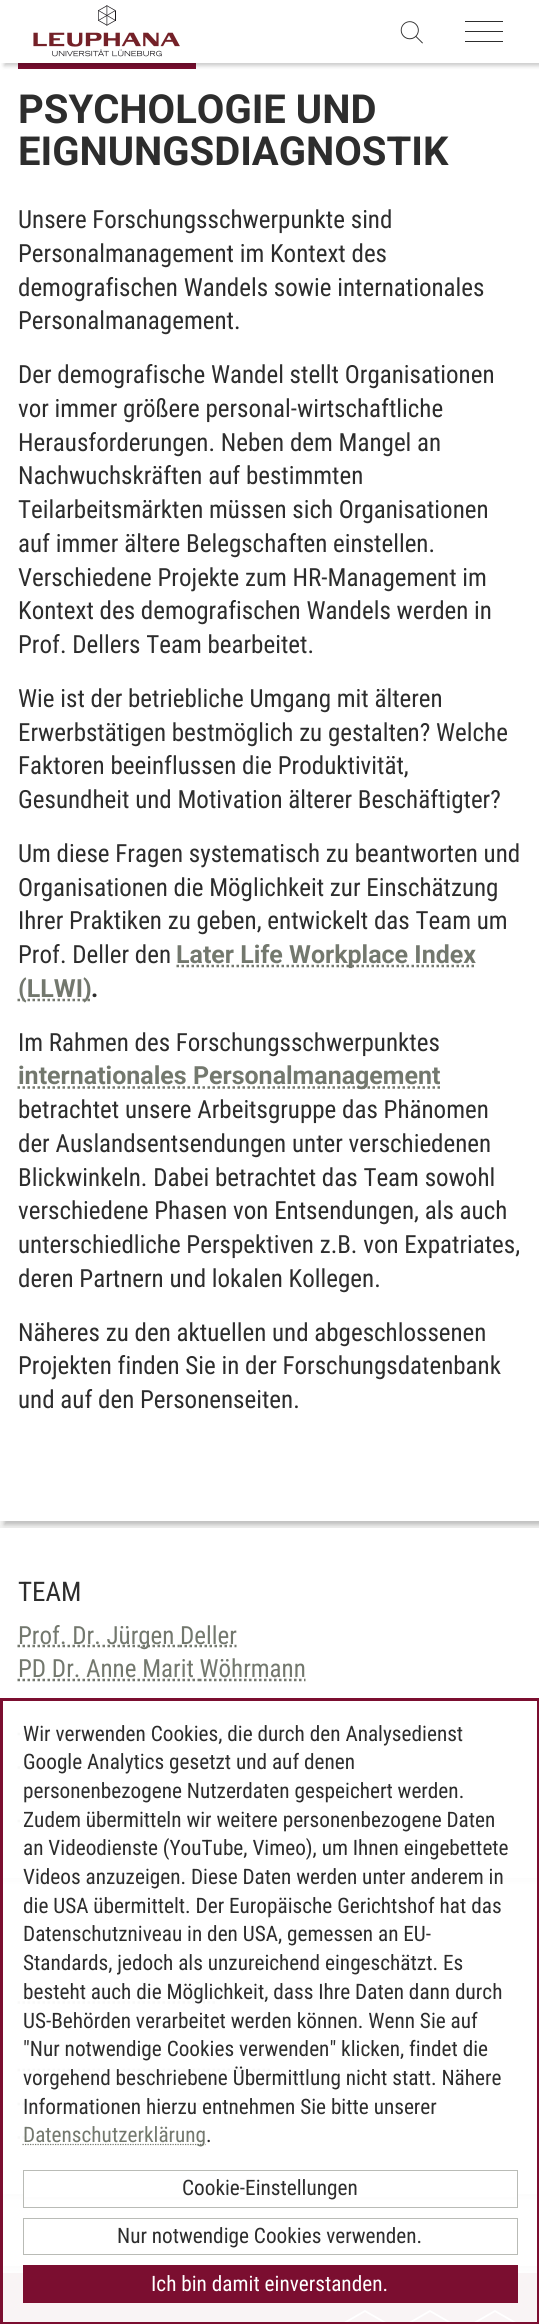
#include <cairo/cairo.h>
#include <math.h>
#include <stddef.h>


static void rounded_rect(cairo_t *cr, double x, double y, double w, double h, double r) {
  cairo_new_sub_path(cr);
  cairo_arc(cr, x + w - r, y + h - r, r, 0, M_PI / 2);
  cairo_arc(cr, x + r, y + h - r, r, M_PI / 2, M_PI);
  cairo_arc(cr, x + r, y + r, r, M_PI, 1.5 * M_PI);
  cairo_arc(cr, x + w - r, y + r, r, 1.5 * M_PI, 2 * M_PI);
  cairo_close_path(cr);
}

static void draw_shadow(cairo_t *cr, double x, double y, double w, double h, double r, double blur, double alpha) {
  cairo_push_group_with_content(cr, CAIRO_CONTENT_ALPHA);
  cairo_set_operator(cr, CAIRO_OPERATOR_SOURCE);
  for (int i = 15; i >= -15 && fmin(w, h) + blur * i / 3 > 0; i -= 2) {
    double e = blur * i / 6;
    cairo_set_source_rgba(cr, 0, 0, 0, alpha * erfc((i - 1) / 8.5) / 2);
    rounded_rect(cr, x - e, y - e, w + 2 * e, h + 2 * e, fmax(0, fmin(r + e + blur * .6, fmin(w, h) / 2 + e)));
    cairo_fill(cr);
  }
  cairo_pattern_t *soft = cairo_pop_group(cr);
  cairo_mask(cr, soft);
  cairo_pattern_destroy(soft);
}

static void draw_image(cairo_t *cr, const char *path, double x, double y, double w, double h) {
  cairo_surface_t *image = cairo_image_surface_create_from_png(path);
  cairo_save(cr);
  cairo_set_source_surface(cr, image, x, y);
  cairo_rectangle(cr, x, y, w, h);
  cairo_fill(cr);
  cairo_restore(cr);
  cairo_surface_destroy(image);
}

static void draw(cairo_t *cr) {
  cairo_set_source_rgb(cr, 241 / 255.0, 241 / 255.0, 240 / 255.0);
  cairo_paint(cr);
  cairo_set_source_rgb(cr, 0, 0, 0);
  draw_shadow(cr, 4, -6, 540, 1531, 0, 2, 0.2);
  cairo_set_source_rgb(cr, 1, 1, 1);
  cairo_rectangle(cr, 0, 0, 539, 1521);
  cairo_fill(cr);
  draw_image(cr, "images/1.png", 33, 5, 147, 52);
  cairo_set_source_rgb(cr, 123 / 255.0, 14 / 255.0, 48 / 255.0);
  cairo_rectangle(cr, 18, 63, 178, 6);
  cairo_fill(cr);
  draw_image(cr, "images/2.png", 400, 21, 23, 23);
  cairo_set_source_rgb(cr, 45 / 255.0, 45 / 255.0, 45 / 255.0);
  cairo_rectangle(cr, 465, 31, 38, 1);
  cairo_fill(cr);
  cairo_rectangle(cr, 465, 21, 38, 1);
  cairo_fill(cr);
  cairo_rectangle(cr, 465, 41, 38, 1);
  cairo_fill(cr);
  cairo_save(cr);
  cairo_set_fill_rule(cr, CAIRO_FILL_RULE_EVEN_ODD);
  cairo_new_path(cr);
  cairo_move_to(cr, 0, 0);
  cairo_line_to(cr, 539, 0);
  cairo_line_to(cr, 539, 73);
  cairo_line_to(cr, 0, 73);
  cairo_close_path(cr);
  cairo_move_to(cr, 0, -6);
  cairo_line_to(cr, 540, -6);
  cairo_line_to(cr, 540, 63);
  cairo_line_to(cr, 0, 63);
  cairo_close_path(cr);
  cairo_clip(cr);
  cairo_set_source_rgb(cr, 0, 0, 0);
  draw_shadow(cr, 4, -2, 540, 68, 0, 2, 0.2);
  cairo_restore(cr);
  cairo_new_path(cr);
  cairo_move_to(cr, 176.5, 966);
  cairo_line_to(cr, 476, 966);
  cairo_set_source_rgb(cr, 115 / 255.0, 120 / 255.0, 110 / 255.0);
  cairo_set_line_width(cr, 2.5);
  cairo_set_dash(cr, (double[]){2.5, 2.5}, 2, 0);
  cairo_stroke(cr);
  cairo_new_path(cr);
  cairo_move_to(cr, 17.5, 1000);
  cairo_line_to(cr, 91.5, 1000);
  cairo_stroke(cr);
  cairo_new_path(cr);
  cairo_move_to(cr, 17.5, 1087.5);
  cairo_line_to(cr, 440, 1087.5);
  cairo_stroke(cr);
  cairo_set_source_rgb(cr, 0, 0, 0);
  draw_shadow(cr, 4, 1531, 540, 350, 0, 2, 0.2);
  cairo_set_source_rgb(cr, 1, 1, 1);
  cairo_rectangle(cr, 0, 1528, 539, 350);
  cairo_fill(cr);
  cairo_new_path(cr);
  cairo_move_to(cr, 17.5, 1646);
  cairo_line_to(cr, 179.5, 1646);
  cairo_set_source_rgb(cr, 115 / 255.0, 120 / 255.0, 110 / 255.0);
  cairo_stroke(cr);
  cairo_new_path(cr);
  cairo_move_to(cr, 179.5, 1646);
  cairo_line_to(cr, 236.5, 1646);
  cairo_stroke(cr);
  cairo_new_path(cr);
  cairo_move_to(cr, 17.5, 1680);
  cairo_line_to(cr, 199, 1680);
  cairo_stroke(cr);
  cairo_new_path(cr);
  cairo_move_to(cr, 199, 1680);
  cairo_line_to(cr, 305.5, 1680);
  cairo_stroke(cr);
  cairo_new_path(cr);
  cairo_move_to(cr, 17.5, 1734);
  cairo_line_to(cr, 105, 1734);
  cairo_stroke(cr);
  cairo_new_path(cr);
  cairo_move_to(cr, 105, 1734);
  cairo_line_to(cr, 164, 1734);
  cairo_stroke(cr);
  cairo_new_path(cr);
  cairo_move_to(cr, 17.5, 1767.5);
  cairo_line_to(cr, 99.5, 1767.5);
  cairo_stroke(cr);
  cairo_new_path(cr);
  cairo_move_to(cr, 99.5, 1767.5);
  cairo_line_to(cr, 188, 1767.5);
  cairo_stroke(cr);
  cairo_new_path(cr);
  cairo_move_to(cr, 17.5, 1821);
  cairo_line_to(cr, 107.5, 1821);
  cairo_stroke(cr);
  cairo_new_path(cr);
  cairo_move_to(cr, 107.5, 1821);
  cairo_line_to(cr, 185.5, 1821);
  cairo_stroke(cr);
  cairo_set_source_rgb(cr, 0, 0, 0);
  draw_shadow(cr, 4, 1888, 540, 310, 0, 2, 0.2);
  cairo_set_source_rgb(cr, 1, 1, 1);
  cairo_rectangle(cr, 3, 1884, 534, 310);
  cairo_fill(cr);
  cairo_new_path(cr);
  cairo_move_to(cr, 17.5, 2002.5);
  cairo_line_to(cr, 215.5, 2002.5);
  cairo_set_source_rgb(cr, 115 / 255.0, 120 / 255.0, 110 / 255.0);
  cairo_stroke(cr);
  cairo_new_path(cr);
  cairo_move_to(cr, 17.5, 2070);
  cairo_line_to(cr, 271, 2070);
  cairo_stroke(cr);
  cairo_new_path(cr);
  cairo_move_to(cr, 17.5, 2104);
  cairo_line_to(cr, 310, 2104);
  cairo_stroke(cr);
  cairo_new_path(cr);
  cairo_move_to(cr, 17.5, 2137.5);
  cairo_line_to(cr, 198.5, 2137.5);
  cairo_stroke(cr);
  cairo_set_source_rgb(cr, 123 / 255.0, 14 / 255.0, 48 / 255.0);
  cairo_rectangle(cr, 3, 2273, 534, 49);
  cairo_fill(cr);
  cairo_set_source_rgb(cr, 0, 0, 0);
  draw_shadow(cr, 4, 2204, 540, 66, 0, 2, 0.2);
  cairo_set_source_rgb(cr, 1, 1, 1);
  cairo_rectangle(cr, 3, 2200, 534, 66);
  cairo_fill(cr);
  draw_image(cr, "images/3.png", 344, 2310, 42, 12);
  draw_image(cr, "images/3.png", 409, 2310, 42, 12);
  draw_image(cr, "images/3.png", 474, 2310, 42, 12);
  cairo_set_source_rgba(cr, 1, 1, 1, 0.95);
  cairo_rectangle(cr, 3, 1732, 534, 590);
  cairo_fill(cr);
  cairo_rectangle(cr, 1.5, 1699.5, 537, 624);
  cairo_set_source_rgb(cr, 123 / 255.0, 14 / 255.0, 48 / 255.0);
  cairo_set_line_width(cr, 3);
  cairo_set_dash(cr, NULL, 0, 0);
  cairo_stroke(cr);
  cairo_new_path(cr);
  cairo_move_to(cr, 22.5, 2144.5);
  cairo_line_to(cr, 205.5, 2144.5);
  cairo_set_source_rgb(cr, 115 / 255.0, 120 / 255.0, 110 / 255.0);
  cairo_set_line_width(cr, 1.2);
  cairo_set_dash(cr, (double[]){1.25, 1.25}, 2, 0);
  cairo_stroke(cr);
  cairo_set_source_rgb(cr, 1, 1, 1);
  cairo_rectangle(cr, 24, 2194, 493, 3);
  cairo_fill(cr);
  cairo_rectangle(cr, 23.5, 2170.5, 494, 37);
  cairo_set_source_rgb(cr, 185 / 255.0, 187 / 255.0, 182 / 255.0);
  cairo_set_line_width(cr, 1);
  cairo_set_dash(cr, NULL, 0, 0);
  cairo_stroke(cr);
  cairo_rectangle(cr, 23.5, 2218.5, 494, 36);
  cairo_stroke(cr);
  cairo_set_source_rgb(cr, 123 / 255.0, 14 / 255.0, 48 / 255.0);
  cairo_rectangle(cr, 23, 2265, 495, 38);
  cairo_fill(cr);
  cairo_select_font_face(cr, "Roboto", CAIRO_FONT_SLANT_NORMAL, CAIRO_FONT_WEIGHT_BOLD);
  cairo_set_font_size(cr, 40);
  cairo_set_source_rgb(cr, 45 / 255.0, 45 / 255.0, 45 / 255.0);
  cairo_move_to(cr, 18, 123);
  cairo_show_text(cr, "PSYCHOLOGIE UND");
  cairo_move_to(cr, 18, 165);
  cairo_show_text(cr, "EIGNUNGSDIAGNOSTIK");
  cairo_select_font_face(cr, "Roboto Condensed", CAIRO_FONT_SLANT_NORMAL, CAIRO_FONT_WEIGHT_NORMAL);
  cairo_set_font_size(cr, 25);
  cairo_move_to(cr, 18, 228);
  cairo_show_text(cr, "Unsere Forschungsschwerpunkte sind");
  cairo_move_to(cr, 18, 262);
  cairo_show_text(cr, "Personalmanagement im Kontext des");
  cairo_move_to(cr, 18, 296);
  cairo_show_text(cr, "demografischen Wandels sowie internationales");
  cairo_move_to(cr, 18, 329);
  cairo_show_text(cr, "Personalmanagement.");
  cairo_move_to(cr, 18, 383);
  cairo_show_text(cr, "Der demografische Wandel stellt Organisationen");
  cairo_move_to(cr, 18, 417);
  cairo_show_text(cr, "vor immer größere personal-wirtschaftliche");
  cairo_move_to(cr, 18, 451);
  cairo_show_text(cr, "Herausforderungen. Neben dem Mangel an");
  cairo_move_to(cr, 18, 484);
  cairo_show_text(cr, "Nachwuchskräften auf bestimmten");
  cairo_move_to(cr, 18, 518);
  cairo_show_text(cr, "Teilarbeitsmärkten müssen sich Organisationen");
  cairo_move_to(cr, 18, 552);
  cairo_show_text(cr, "auf immer ältere Belegschaften einstellen.");
  cairo_move_to(cr, 18, 586);
  cairo_show_text(cr, "Verschiedene Projekte zum HR-Management im");
  cairo_move_to(cr, 18, 619);
  cairo_show_text(cr, "Kontext des demografischen Wandels werden in");
  cairo_move_to(cr, 18, 653);
  cairo_show_text(cr, "Prof. Dellers Team bearbeitet.");
  cairo_move_to(cr, 18, 707);
  cairo_show_text(cr, "Wie ist der betriebliche Umgang mit älteren");
  cairo_move_to(cr, 18, 741);
  cairo_show_text(cr, "Erwerbstätigen bestmöglich zu gestalten? Welche");
  cairo_move_to(cr, 18, 774);
  cairo_show_text(cr, "Faktoren beeinflussen die Produktivität,");
  cairo_move_to(cr, 18, 808);
  cairo_show_text(cr, "Gesundheit und Motivation älterer Beschäftigter?");
  cairo_move_to(cr, 18, 862);
  cairo_show_text(cr, "Um diese Fragen systematisch zu beantworten und");
  cairo_move_to(cr, 18, 896);
  cairo_show_text(cr, "Organisationen die Möglichkeit zur Einschätzung");
  cairo_move_to(cr, 18, 929);
  cairo_show_text(cr, "Ihrer Praktiken zu geben, entwickelt das Team um");
  cairo_move_to(cr, 18, 963);
  cairo_show_text(cr, "Prof. Deller den");
  cairo_select_font_face(cr, "Roboto", CAIRO_FONT_SLANT_NORMAL, CAIRO_FONT_WEIGHT_BOLD);
  cairo_set_source_rgb(cr, 115 / 255.0, 120 / 255.0, 110 / 255.0);
  cairo_move_to(cr, 176, 963);
  cairo_show_text(cr, "Later Life Workplace Index");
  cairo_move_to(cr, 18, 997);
  cairo_show_text(cr, "(LLWI)");
  cairo_set_source_rgb(cr, 45 / 255.0, 45 / 255.0, 45 / 255.0);
  cairo_move_to(cr, 91, 997);
  cairo_show_text(cr, ".");
  cairo_select_font_face(cr, "Roboto Condensed", CAIRO_FONT_SLANT_NORMAL, CAIRO_FONT_WEIGHT_NORMAL);
  cairo_move_to(cr, 18, 1051);
  cairo_show_text(cr, "Im Rahmen des Forschungsschwerpunktes");
  cairo_select_font_face(cr, "Roboto", CAIRO_FONT_SLANT_NORMAL, CAIRO_FONT_WEIGHT_BOLD);
  cairo_set_source_rgb(cr, 115 / 255.0, 120 / 255.0, 110 / 255.0);
  cairo_move_to(cr, 18, 1084);
  cairo_show_text(cr, "internationales Personalmanagement");
  cairo_select_font_face(cr, "Roboto Condensed", CAIRO_FONT_SLANT_NORMAL, CAIRO_FONT_WEIGHT_NORMAL);
  cairo_set_source_rgb(cr, 45 / 255.0, 45 / 255.0, 45 / 255.0);
  cairo_move_to(cr, 18, 1118);
  cairo_show_text(cr, "betrachtet unsere Arbeitsgruppe das Phänomen");
  cairo_move_to(cr, 18, 1152);
  cairo_show_text(cr, "der Auslandsentsendungen unter verschiedenen");
  cairo_move_to(cr, 18, 1186);
  cairo_show_text(cr, "Blickwinkeln. Dabei betrachtet das Team sowohl");
  cairo_move_to(cr, 18, 1219);
  cairo_show_text(cr, "verschiedene Phasen von Entsendungen, als auch");
  cairo_move_to(cr, 18, 1253);
  cairo_show_text(cr, "unterschiedliche Perspektiven z.B. von Expatriates,");
  cairo_move_to(cr, 18, 1287);
  cairo_show_text(cr, "deren Partnern und lokalen Kollegen.");
  cairo_move_to(cr, 18, 1341);
  cairo_show_text(cr, "Näheres zu den aktuellen und abgeschlossenen");
  cairo_move_to(cr, 18, 1374);
  cairo_show_text(cr, "Projekten finden Sie in der Forschungsdatenbank");
  cairo_move_to(cr, 18, 1408);
  cairo_show_text(cr, "und auf den Personenseiten.");
  cairo_set_font_size(cr, 27);
  cairo_move_to(cr, 18, 1601);
  cairo_show_text(cr, "TEAM");
  cairo_set_font_size(cr, 25);
  cairo_set_source_rgb(cr, 115 / 255.0, 120 / 255.0, 110 / 255.0);
  cairo_move_to(cr, 18, 1644);
  cairo_show_text(cr, "Prof. Dr. Jürgen");
  cairo_move_to(cr, 180, 1644);
  cairo_show_text(cr, "Deller");
  cairo_move_to(cr, 18, 1677);
  cairo_show_text(cr, "PD Dr. Anne Marit Wöhrmann");
  cairo_set_font_size(cr, 21.25);
  cairo_set_source_rgb(cr, 45 / 255.0, 45 / 255.0, 45 / 255.0);
  cairo_move_to(cr, 23, 1741);
  cairo_show_text(cr, "Wir verwenden Cookies, die durch den Analysedienst");
  cairo_move_to(cr, 23, 1769);
  cairo_show_text(cr, "Google Analytics gesetzt und auf denen");
  cairo_move_to(cr, 23, 1798);
  cairo_show_text(cr, "personenbezogene Nutzerdaten gespeichert werden.");
  cairo_move_to(cr, 23, 1827);
  cairo_show_text(cr, "Zudem übermitteln wir weitere personenbezogene Daten");
  cairo_move_to(cr, 23, 1855);
  cairo_show_text(cr, "an Videodienste (YouTube, Vimeo), um Ihnen eingebettete");
  cairo_move_to(cr, 23, 1884);
  cairo_show_text(cr, "Videos anzuzeigen. Diese Daten werden unter anderem in");
  cairo_move_to(cr, 23, 1913);
  cairo_show_text(cr, "die USA übermittelt. Der Europäische Gerichtshof hat das");
  cairo_move_to(cr, 23, 1941);
  cairo_show_text(cr, "Datenschutzniveau in den USA, gemessen an EU-");
  cairo_move_to(cr, 23, 1970);
  cairo_show_text(cr, "Standards, jedoch als unzureichend eingeschätzt. Es");
  cairo_move_to(cr, 23, 1999);
  cairo_show_text(cr, "besteht auch die Möglichkeit, dass Ihre Daten dann durch");
  cairo_move_to(cr, 23, 2028);
  cairo_show_text(cr, "US-Behörden verarbeitet werden können. Wenn Sie auf");
  cairo_move_to(cr, 23, 2056);
  cairo_show_text(cr, "\"Nur notwendige Cookies verwenden\" klicken, findet die");
  cairo_move_to(cr, 23, 2085);
  cairo_show_text(cr, "vorgehend beschriebene Übermittlung nicht statt. Nähere");
  cairo_move_to(cr, 23, 2114);
  cairo_show_text(cr, "Informationen hierzu entnehmen Sie bitte unserer");
  cairo_set_source_rgb(cr, 115 / 255.0, 120 / 255.0, 110 / 255.0);
  cairo_move_to(cr, 23, 2142);
  cairo_show_text(cr, "Datenschutzerklärung");
  cairo_set_source_rgb(cr, 45 / 255.0, 45 / 255.0, 45 / 255.0);
  cairo_move_to(cr, 206, 2142);
  cairo_show_text(cr, ".");
  cairo_move_to(cr, 182, 2195);
  cairo_show_text(cr, "Cookie-Einstellungen");
  cairo_move_to(cr, 117, 2243);
  cairo_show_text(cr, "Nur notwendige Cookies verwenden.");
  cairo_set_source_rgb(cr, 1, 1, 1);
  cairo_move_to(cr, 151, 2291);
  cairo_show_text(cr, "Ich bin damit einverstanden.");
}

int main(void) {
  cairo_surface_t *surface = cairo_image_surface_create(CAIRO_FORMAT_RGB24, 539, 2324);
  cairo_t *cr = cairo_create(surface);
  cairo_font_options_t *options = cairo_font_options_create();
  cairo_font_options_set_hint_metrics(options, CAIRO_HINT_METRICS_OFF);
  cairo_font_options_set_hint_style(options, CAIRO_HINT_STYLE_NONE);
  cairo_set_font_options(cr, options);
  cairo_set_miter_limit(cr, 4);
  draw(cr);
  cairo_surface_write_to_png(surface, "out.png");
  cairo_font_options_destroy(options);
  cairo_destroy(cr);
  cairo_surface_destroy(surface);
  return 0;
}
